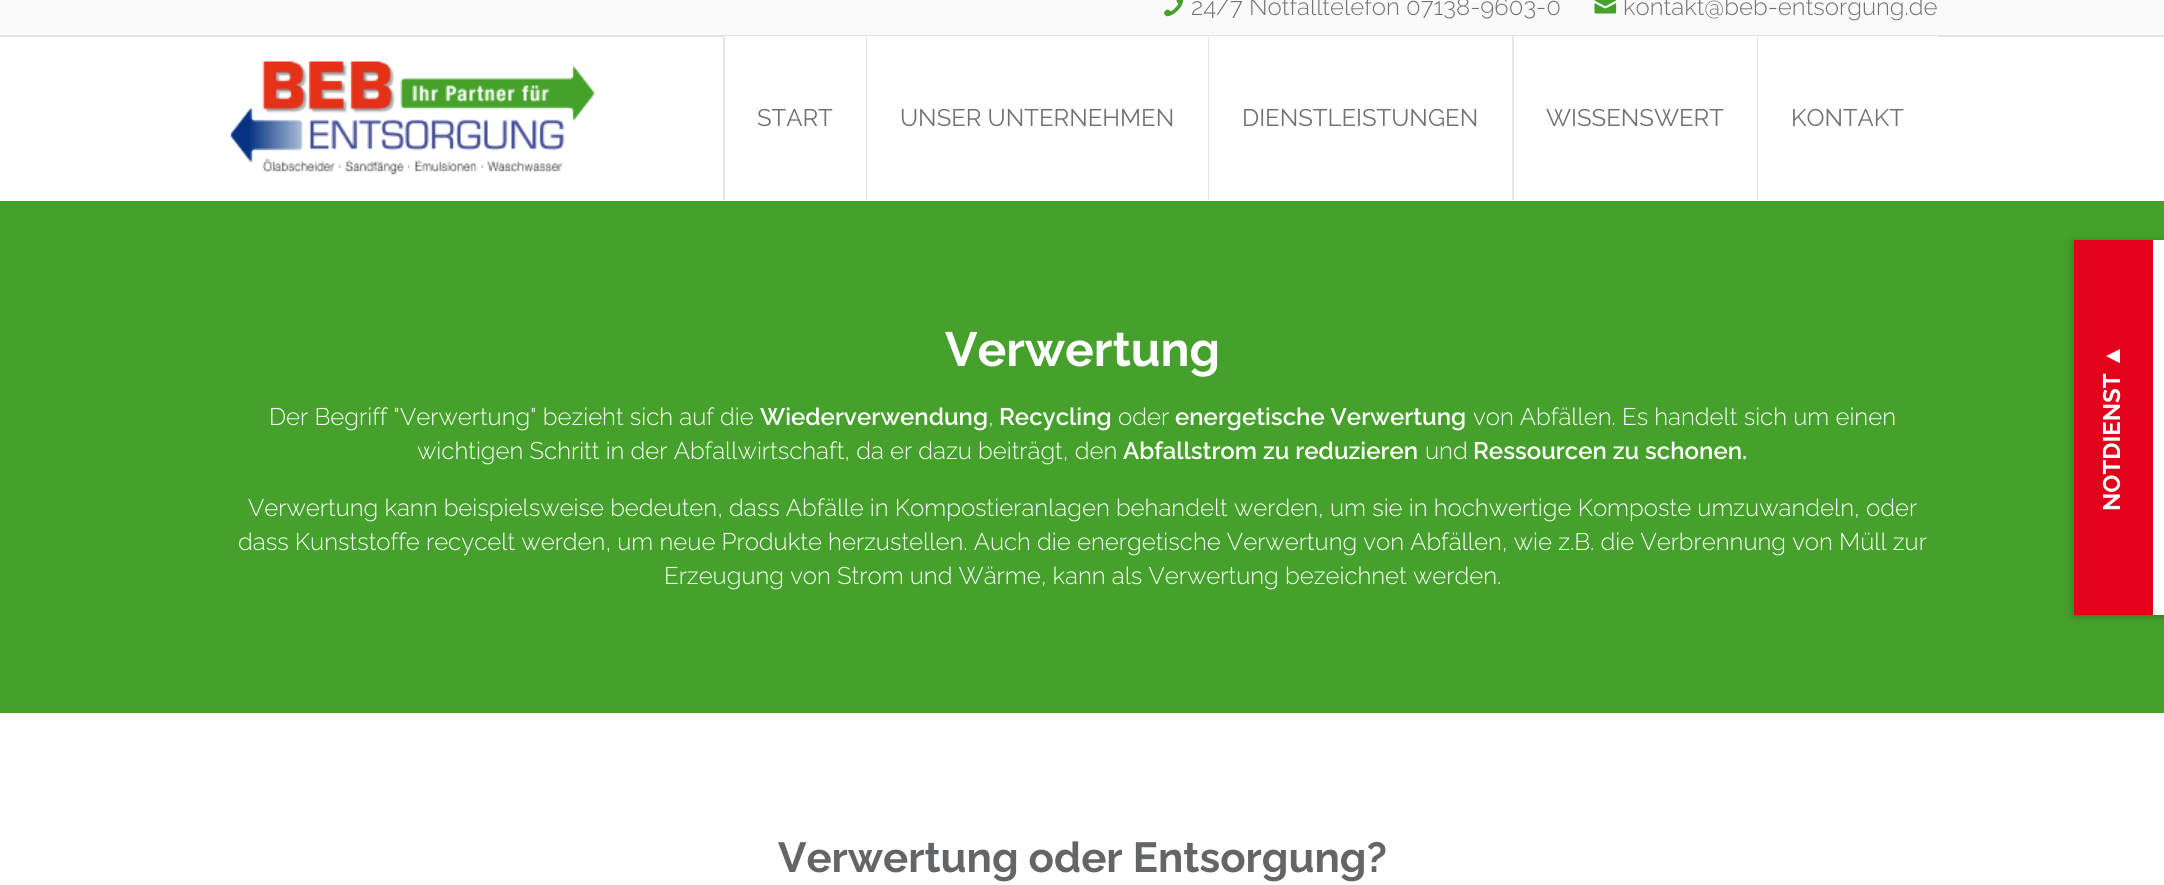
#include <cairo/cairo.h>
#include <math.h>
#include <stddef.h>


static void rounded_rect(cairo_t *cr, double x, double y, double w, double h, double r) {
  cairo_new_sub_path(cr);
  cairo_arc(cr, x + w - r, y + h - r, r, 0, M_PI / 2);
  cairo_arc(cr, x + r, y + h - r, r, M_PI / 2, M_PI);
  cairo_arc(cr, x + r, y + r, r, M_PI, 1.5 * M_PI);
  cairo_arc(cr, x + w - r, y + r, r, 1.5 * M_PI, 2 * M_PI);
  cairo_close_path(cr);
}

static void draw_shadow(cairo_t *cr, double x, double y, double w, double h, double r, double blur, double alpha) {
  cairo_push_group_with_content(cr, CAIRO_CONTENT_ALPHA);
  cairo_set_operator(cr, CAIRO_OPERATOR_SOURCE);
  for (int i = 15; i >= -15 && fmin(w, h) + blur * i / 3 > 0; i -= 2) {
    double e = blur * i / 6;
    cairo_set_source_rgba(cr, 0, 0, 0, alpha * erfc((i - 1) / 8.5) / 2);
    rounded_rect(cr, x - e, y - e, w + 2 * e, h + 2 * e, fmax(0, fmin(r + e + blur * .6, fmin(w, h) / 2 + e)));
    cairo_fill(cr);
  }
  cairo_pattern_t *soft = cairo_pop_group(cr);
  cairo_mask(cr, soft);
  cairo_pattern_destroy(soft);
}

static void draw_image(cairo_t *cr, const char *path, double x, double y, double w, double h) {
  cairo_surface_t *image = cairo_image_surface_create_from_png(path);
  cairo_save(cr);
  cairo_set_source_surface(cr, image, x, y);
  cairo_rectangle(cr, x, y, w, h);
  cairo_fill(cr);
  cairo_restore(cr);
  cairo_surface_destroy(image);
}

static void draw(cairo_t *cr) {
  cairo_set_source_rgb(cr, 1, 1, 1);
  cairo_paint(cr);
  cairo_set_source_rgb(cr, 250 / 255.0, 250 / 255.0, 250 / 255.0);
  cairo_rectangle(cr, 0, 0, 2164, 35);
  cairo_fill(cr);
  cairo_set_source_rgb(cr, 228 / 255.0, 228 / 255.0, 228 / 255.0);
  cairo_rectangle(cr, 0, 35, 2164, 2);
  cairo_fill(cr);
  draw_image(cr, "images/1.png", 1164, 0, 20, 17);
  draw_image(cr, "images/2.png", 1594, 0, 23, 14);
  draw_image(cr, "images/3.png", 230, 61, 365, 114);
  cairo_set_source_rgb(cr, 231 / 255.0, 231 / 255.0, 231 / 255.0);
  cairo_rectangle(cr, 723, 36, 2, 164);
  cairo_fill(cr);
  cairo_set_source_rgb(cr, 1, 1, 1);
  cairo_rectangle(cr, 725, 36, 141, 1);
  cairo_fill(cr);
  cairo_set_source_rgb(cr, 231 / 255.0, 231 / 255.0, 231 / 255.0);
  cairo_rectangle(cr, 866, 36, 1, 164);
  cairo_fill(cr);
  cairo_set_source_rgb(cr, 1, 1, 1);
  cairo_rectangle(cr, 867, 36, 341, 1);
  cairo_fill(cr);
  cairo_set_source_rgb(cr, 231 / 255.0, 231 / 255.0, 231 / 255.0);
  cairo_rectangle(cr, 1208, 36, 1, 164);
  cairo_fill(cr);
  cairo_set_source_rgb(cr, 1, 1, 1);
  cairo_rectangle(cr, 1209, 36, 303, 1);
  cairo_fill(cr);
  cairo_set_source_rgb(cr, 231 / 255.0, 231 / 255.0, 231 / 255.0);
  cairo_rectangle(cr, 1512, 36, 2, 164);
  cairo_fill(cr);
  cairo_set_source_rgb(cr, 1, 1, 1);
  cairo_rectangle(cr, 1514, 36, 243, 1);
  cairo_fill(cr);
  cairo_set_source_rgb(cr, 231 / 255.0, 231 / 255.0, 231 / 255.0);
  cairo_rectangle(cr, 1757, 36, 1, 164);
  cairo_fill(cr);
  cairo_set_source_rgb(cr, 1, 1, 1);
  cairo_rectangle(cr, 1758, 36, 180, 1);
  cairo_fill(cr);
  cairo_set_source_rgb(cr, 69 / 255.0, 161 / 255.0, 43 / 255.0);
  cairo_rectangle(cr, 0, 201, 2164, 512);
  cairo_fill(cr);
  cairo_set_source_rgb(cr, 0, 0, 0);
  draw_shadow(cr, 2073, 242, 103, 375, 0, 4, 0.25);
  cairo_set_source_rgb(cr, 1, 1, 1);
  cairo_rectangle(cr, 2153, 240, 11, 375);
  cairo_fill(cr);
  cairo_set_source_rgb(cr, 226 / 255.0, 0, 26 / 255.0);
  cairo_rectangle(cr, 2074, 240, 79, 375);
  cairo_fill(cr);
  cairo_select_font_face(cr, "Raleway Thin", CAIRO_FONT_SLANT_NORMAL, CAIRO_FONT_WEIGHT_NORMAL);
  cairo_set_font_size(cr, 24);
  cairo_set_source_rgb(cr, 114 / 255.0, 113 / 255.0, 113 / 255.0);
  cairo_move_to(cr, 1191, 15);
  cairo_show_text(cr, "24/7 Notfalltelefon 07138-9603-0");
  cairo_move_to(cr, 1623, 15);
  cairo_show_text(cr, "kontakt@beb-entsorgung.de");
  cairo_select_font_face(cr, "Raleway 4 Thin", CAIRO_FONT_SLANT_NORMAL, CAIRO_FONT_WEIGHT_NORMAL);
  cairo_move_to(cr, 757, 126);
  cairo_show_text(cr, "START");
  cairo_move_to(cr, 900, 126);
  cairo_show_text(cr, "UNSER UNTERNEHMEN");
  cairo_move_to(cr, 1242, 126);
  cairo_show_text(cr, "DIENSTLEISTUNGEN");
  cairo_move_to(cr, 1546, 126);
  cairo_show_text(cr, "WISSENSWERT");
  cairo_move_to(cr, 1791, 126);
  cairo_show_text(cr, "KONTAKT");
  cairo_select_font_face(cr, "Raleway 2 Thin", CAIRO_FONT_SLANT_NORMAL, CAIRO_FONT_WEIGHT_NORMAL);
  cairo_set_font_size(cr, 48);
  cairo_set_source_rgb(cr, 1, 1, 1);
  cairo_move_to(cr, 945, 366);
  cairo_show_text(cr, "Verwertung");
  cairo_select_font_face(cr, "Raleway Thin", CAIRO_FONT_SLANT_NORMAL, CAIRO_FONT_WEIGHT_NORMAL);
  cairo_set_font_size(cr, 24);
  cairo_move_to(cr, 269, 425);
  cairo_show_text(cr, "Der Begriff \"Verwertung\" bezieht sich auf die");
  cairo_select_font_face(cr, "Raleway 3 Thin", CAIRO_FONT_SLANT_NORMAL, CAIRO_FONT_WEIGHT_NORMAL);
  cairo_move_to(cr, 760, 425);
  cairo_show_text(cr, "Wiederverwendung");
  cairo_select_font_face(cr, "Raleway Thin", CAIRO_FONT_SLANT_NORMAL, CAIRO_FONT_WEIGHT_NORMAL);
  cairo_move_to(cr, 988, 425);
  cairo_show_text(cr, ",");
  cairo_select_font_face(cr, "Raleway 3 Thin", CAIRO_FONT_SLANT_NORMAL, CAIRO_FONT_WEIGHT_NORMAL);
  cairo_move_to(cr, 999, 425);
  cairo_show_text(cr, "Recycling");
  cairo_select_font_face(cr, "Raleway Thin", CAIRO_FONT_SLANT_NORMAL, CAIRO_FONT_WEIGHT_NORMAL);
  cairo_move_to(cr, 1118, 425);
  cairo_show_text(cr, "oder");
  cairo_select_font_face(cr, "Raleway 3 Thin", CAIRO_FONT_SLANT_NORMAL, CAIRO_FONT_WEIGHT_NORMAL);
  cairo_move_to(cr, 1175, 425);
  cairo_show_text(cr, "energetische Verwertung");
  cairo_select_font_face(cr, "Raleway Thin", CAIRO_FONT_SLANT_NORMAL, CAIRO_FONT_WEIGHT_NORMAL);
  cairo_move_to(cr, 1473, 425);
  cairo_show_text(cr, "von Abfällen. Es handelt sich um einen");
  cairo_move_to(cr, 417, 459);
  cairo_show_text(cr, "wichtigen Schritt in der Abfallwirtschaft, da er dazu beiträgt, den");
  cairo_select_font_face(cr, "Raleway 3 Thin", CAIRO_FONT_SLANT_NORMAL, CAIRO_FONT_WEIGHT_NORMAL);
  cairo_move_to(cr, 1123, 459);
  cairo_show_text(cr, "Abfallstrom zu reduzieren");
  cairo_select_font_face(cr, "Raleway Thin", CAIRO_FONT_SLANT_NORMAL, CAIRO_FONT_WEIGHT_NORMAL);
  cairo_move_to(cr, 1425, 459);
  cairo_show_text(cr, "und");
  cairo_select_font_face(cr, "Raleway 3 Thin", CAIRO_FONT_SLANT_NORMAL, CAIRO_FONT_WEIGHT_NORMAL);
  cairo_move_to(cr, 1473, 459);
  cairo_show_text(cr, "Ressourcen zu schonen.");
  cairo_select_font_face(cr, "Raleway Thin", CAIRO_FONT_SLANT_NORMAL, CAIRO_FONT_WEIGHT_NORMAL);
  cairo_move_to(cr, 248, 516);
  cairo_show_text(cr, "Verwertung kann beispielsweise bedeuten, dass Abfälle in Kompostieranlagen behandelt werden, um sie in hochwertige Komposte umzuwandeln, oder");
  cairo_move_to(cr, 238, 550);
  cairo_show_text(cr, "dass Kunststoffe recycelt werden, um neue Produkte herzustellen. Auch die energetische Verwertung von Abfällen, wie z.B. die Verbrennung von Müll zur");
  cairo_move_to(cr, 664, 584);
  cairo_show_text(cr, "Erzeugung von Strom und Wärme, kann als Verwertung bezeichnet werden.");
  cairo_select_font_face(cr, "Liberation Sans", CAIRO_FONT_SLANT_NORMAL, CAIRO_FONT_WEIGHT_BOLD);
  cairo_save(cr);
  cairo_translate(cr, 2120, 368);
  cairo_rotate(cr, -90 * M_PI / 180);
  cairo_move_to(cr, 0, 0);
  cairo_show_text(cr, "▲");
  cairo_restore(cr);
  cairo_select_font_face(cr, "Raleway 2 Thin", CAIRO_FONT_SLANT_NORMAL, CAIRO_FONT_WEIGHT_NORMAL);
  cairo_save(cr);
  cairo_translate(cr, 2120, 511);
  cairo_rotate(cr, -90 * M_PI / 180);
  cairo_move_to(cr, 0, 0);
  cairo_show_text(cr, "NOTDIENST");
  cairo_restore(cr);
  cairo_set_font_size(cr, 42);
  cairo_set_source_rgb(cr, 100 / 255.0, 101 / 255.0, 103 / 255.0);
  cairo_move_to(cr, 778, 872);
  cairo_show_text(cr, "Verwertung oder Entsorgung?");
}

int main(void) {
  cairo_surface_t *surface = cairo_image_surface_create(CAIRO_FORMAT_RGB24, 2164, 885);
  cairo_t *cr = cairo_create(surface);
  cairo_font_options_t *options = cairo_font_options_create();
  cairo_font_options_set_hint_metrics(options, CAIRO_HINT_METRICS_OFF);
  cairo_font_options_set_hint_style(options, CAIRO_HINT_STYLE_NONE);
  cairo_set_font_options(cr, options);
  cairo_set_miter_limit(cr, 4);
  draw(cr);
  cairo_surface_write_to_png(surface, "out.png");
  cairo_font_options_destroy(options);
  cairo_destroy(cr);
  cairo_surface_destroy(surface);
  return 0;
}
